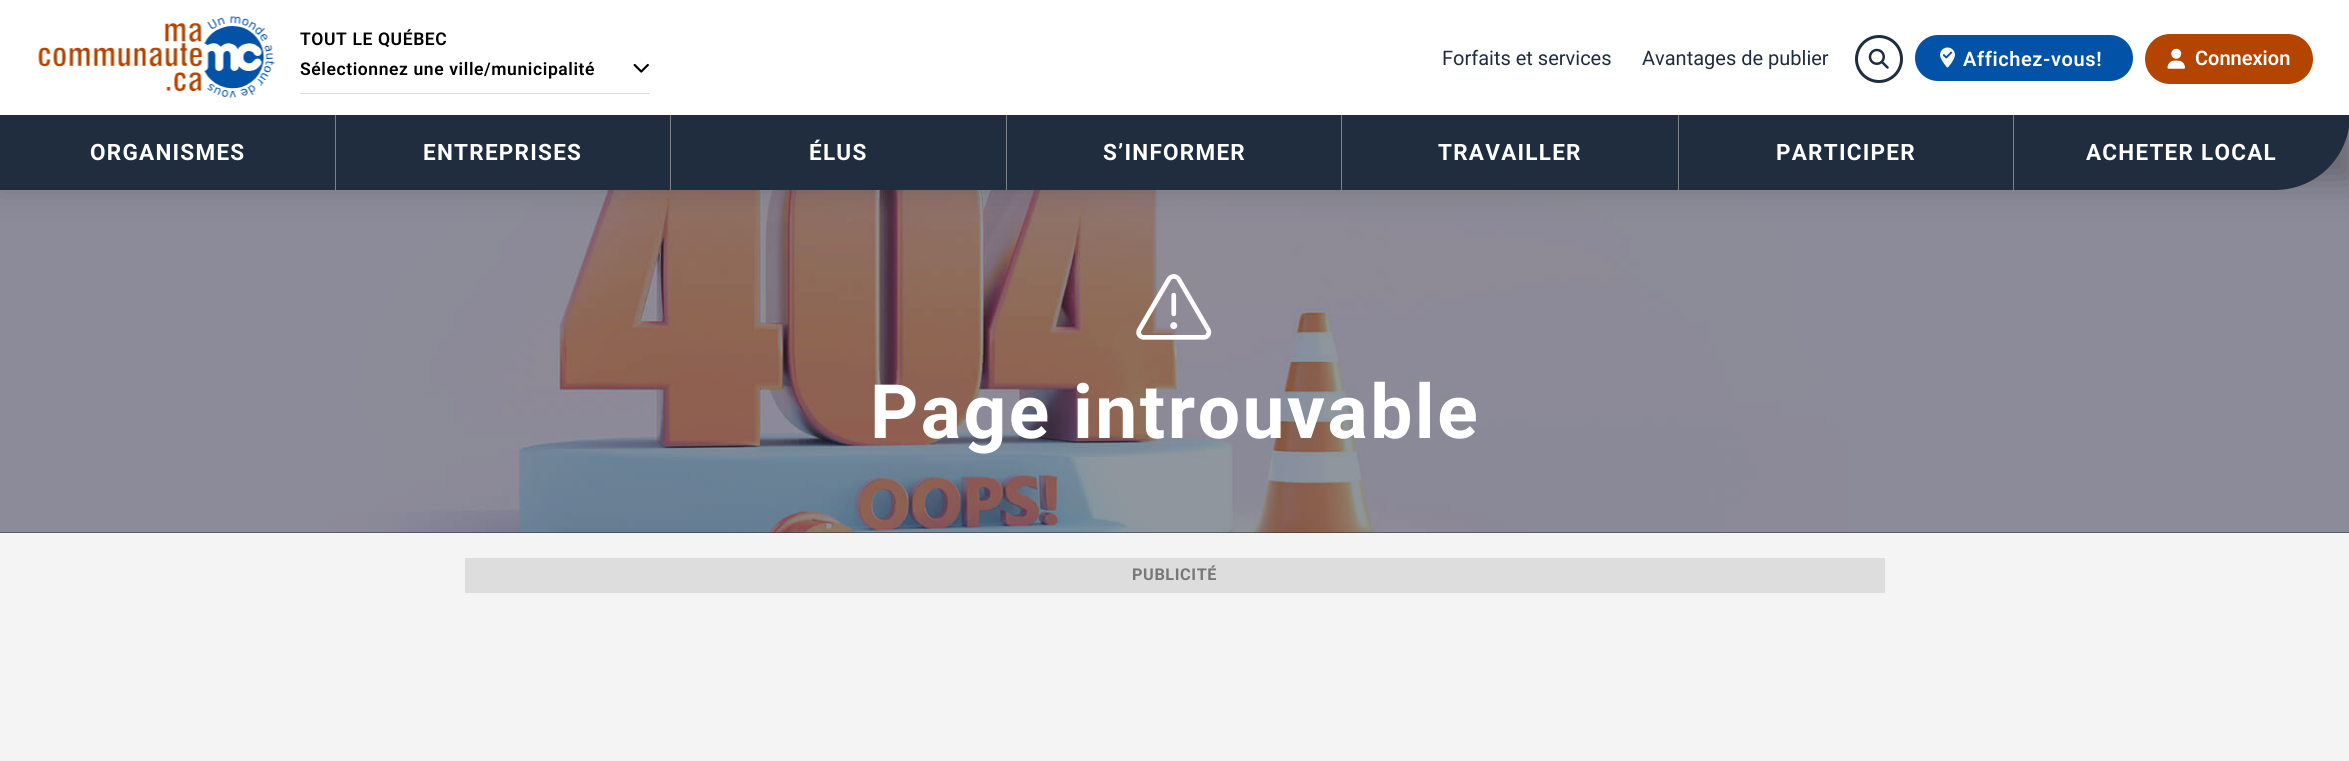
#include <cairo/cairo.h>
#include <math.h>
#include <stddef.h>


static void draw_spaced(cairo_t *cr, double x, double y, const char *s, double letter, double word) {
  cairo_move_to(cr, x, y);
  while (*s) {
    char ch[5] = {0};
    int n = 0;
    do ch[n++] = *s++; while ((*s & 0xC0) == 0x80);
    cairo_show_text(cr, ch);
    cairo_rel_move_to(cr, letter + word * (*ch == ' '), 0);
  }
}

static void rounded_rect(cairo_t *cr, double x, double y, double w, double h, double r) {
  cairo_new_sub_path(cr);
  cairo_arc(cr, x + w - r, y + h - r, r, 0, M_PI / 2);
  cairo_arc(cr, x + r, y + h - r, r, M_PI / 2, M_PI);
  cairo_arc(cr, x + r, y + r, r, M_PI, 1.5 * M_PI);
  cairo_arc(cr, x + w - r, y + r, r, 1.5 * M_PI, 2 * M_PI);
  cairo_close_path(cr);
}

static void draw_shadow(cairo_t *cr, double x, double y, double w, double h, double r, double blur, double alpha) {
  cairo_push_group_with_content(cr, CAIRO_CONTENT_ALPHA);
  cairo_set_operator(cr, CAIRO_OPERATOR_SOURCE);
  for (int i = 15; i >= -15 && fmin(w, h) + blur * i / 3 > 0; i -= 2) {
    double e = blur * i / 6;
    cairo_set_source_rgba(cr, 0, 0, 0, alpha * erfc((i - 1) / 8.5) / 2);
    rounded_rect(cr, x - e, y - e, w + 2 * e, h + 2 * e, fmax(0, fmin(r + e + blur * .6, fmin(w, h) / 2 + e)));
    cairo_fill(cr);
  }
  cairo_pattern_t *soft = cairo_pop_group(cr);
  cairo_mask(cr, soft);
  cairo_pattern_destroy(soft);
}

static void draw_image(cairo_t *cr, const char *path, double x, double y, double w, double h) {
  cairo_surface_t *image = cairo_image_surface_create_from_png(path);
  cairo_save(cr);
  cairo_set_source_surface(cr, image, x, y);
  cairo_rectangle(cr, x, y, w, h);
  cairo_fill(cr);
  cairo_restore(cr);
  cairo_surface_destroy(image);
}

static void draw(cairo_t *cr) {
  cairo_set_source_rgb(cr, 244 / 255.0, 244 / 255.0, 244 / 255.0);
  cairo_paint(cr);
  cairo_set_source_rgb(cr, 31 / 255.0, 45 / 255.0, 62 / 255.0);
  cairo_rectangle(cr, 0, 532, 2349, 1);
  cairo_fill(cr);
  draw_image(cr, "images/6.png", 0, 127, 2349, 406);
  cairo_set_source_rgb(cr, 0, 0, 0);
  draw_shadow(cr, 0, 63, 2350, 115, 0, 19, 0.3);
  cairo_set_source_rgb(cr, 1, 1, 1);
  cairo_rectangle(cr, 0, 0, 2349, 115);
  cairo_fill(cr);
  draw_image(cr, "images/1.png", 38, 16, 237, 82);
  cairo_set_source_rgb(cr, 221 / 255.0, 221 / 255.0, 221 / 255.0);
  cairo_rectangle(cr, 300, 93, 350, 1);
  cairo_fill(cr);
  draw_image(cr, "images/2.png", 633, 63, 16, 10);
  cairo_arc(cr, 1879, 59, 22.5, 0, 2 * M_PI);
  cairo_set_source_rgb(cr, 31 / 255.0, 45 / 255.0, 62 / 255.0);
  cairo_set_line_width(cr, 3);
  cairo_stroke(cr);
  draw_image(cr, "images/3.png", 1868, 48, 21, 21);
  cairo_set_source_rgb(cr, 2 / 255.0, 83 / 255.0, 168 / 255.0);
  rounded_rect(cr, 1915, 35, 218, 46, 23);
  cairo_fill(cr);
  draw_image(cr, "images/4.png", 1940, 47, 15, 21);
  cairo_set_source_rgb(cr, 180 / 255.0, 69 / 255.0, 0);
  rounded_rect(cr, 2146.5, 35.5, 165, 47, 23.5);
  cairo_fill_preserve(cr);
  cairo_stroke(cr);
  draw_image(cr, "images/5.png", 2167, 48, 18, 21);
  cairo_set_source_rgb(cr, 31 / 255.0, 45 / 255.0, 62 / 255.0);
  cairo_rectangle(cr, 0, 115, 335, 75);
  cairo_fill(cr);
  cairo_set_source_rgb(cr, 121 / 255.0, 129 / 255.0, 139 / 255.0);
  cairo_rectangle(cr, 335, 115, 1, 75);
  cairo_fill(cr);
  cairo_set_source_rgb(cr, 31 / 255.0, 45 / 255.0, 62 / 255.0);
  cairo_rectangle(cr, 336, 115, 334, 75);
  cairo_fill(cr);
  cairo_set_source_rgb(cr, 121 / 255.0, 129 / 255.0, 139 / 255.0);
  cairo_rectangle(cr, 670, 115, 1, 75);
  cairo_fill(cr);
  cairo_set_source_rgb(cr, 31 / 255.0, 45 / 255.0, 62 / 255.0);
  cairo_rectangle(cr, 671, 115, 1007, 75);
  cairo_fill(cr);
  cairo_set_source_rgb(cr, 121 / 255.0, 129 / 255.0, 139 / 255.0);
  cairo_rectangle(cr, 1006, 115, 1, 75);
  cairo_fill(cr);
  cairo_rectangle(cr, 1341, 115, 1, 75);
  cairo_fill(cr);
  cairo_rectangle(cr, 1678, 115, 1, 75);
  cairo_fill(cr);
  cairo_set_source_rgb(cr, 31 / 255.0, 45 / 255.0, 62 / 255.0);
  cairo_rectangle(cr, 1679, 115, 334, 75);
  cairo_fill(cr);
  cairo_set_source_rgb(cr, 121 / 255.0, 129 / 255.0, 139 / 255.0);
  cairo_rectangle(cr, 2013, 115, 1, 75);
  cairo_fill(cr);
  cairo_set_source_rgb(cr, 31 / 255.0, 45 / 255.0, 62 / 255.0);
  cairo_new_path(cr);
  cairo_move_to(cr, 2014, 115);
  cairo_line_to(cr, 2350, 115);
  cairo_curve_to(cr, 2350, 156.5, 2316.5, 190, 2275, 190);
  cairo_line_to(cr, 2014, 190);
  cairo_close_path(cr);
  cairo_fill(cr);
  draw_image(cr, "images/7.png", 1136, 274, 76, 66);
  cairo_set_source_rgb(cr, 221 / 255.0, 221 / 255.0, 221 / 255.0);
  cairo_rectangle(cr, 465, 558, 1420, 35);
  cairo_fill(cr);
  cairo_select_font_face(cr, "Roboto SemiBold", CAIRO_FONT_SLANT_NORMAL, CAIRO_FONT_WEIGHT_NORMAL);
  cairo_set_font_size(cr, 17.5);
  cairo_set_source_rgb(cr, 0, 0, 0);
  draw_spaced(cr, 300, 45, "TOUT LE QUÉBEC", 0.6, 0);
  draw_spaced(cr, 300, 75, "Sélectionnez une ville/municipalité", 0.6, 0);
  cairo_select_font_face(cr, "Roboto", CAIRO_FONT_SLANT_NORMAL, CAIRO_FONT_WEIGHT_NORMAL);
  cairo_set_font_size(cr, 20);
  cairo_set_source_rgb(cr, 31 / 255.0, 45 / 255.0, 62 / 255.0);
  cairo_move_to(cr, 1442, 65);
  cairo_show_text(cr, "Forfaits et services");
  cairo_move_to(cr, 1642, 65);
  cairo_show_text(cr, "Avantages de publier");
  cairo_select_font_face(cr, "Roboto SemiBold", CAIRO_FONT_SLANT_NORMAL, CAIRO_FONT_WEIGHT_NORMAL);
  cairo_set_source_rgb(cr, 1, 1, 1);
  draw_spaced(cr, 1963, 66, "Affichez-vous!", 0.6, 0);
  cairo_move_to(cr, 2195, 65);
  cairo_show_text(cr, "Connexion");
  cairo_select_font_face(cr, "Roboto", CAIRO_FONT_SLANT_NORMAL, CAIRO_FONT_WEIGHT_BOLD);
  cairo_set_font_size(cr, 22.5);
  draw_spaced(cr, 90, 160, "ORGANISMES", 1.25, 0);
  draw_spaced(cr, 423, 160, "ENTREPRISES", 1.25, 0);
  draw_spaced(cr, 809, 160, "ÉLUS", 1.25, 0);
  draw_spaced(cr, 1103, 160, "S’INFORMER", 1.25, 0);
  draw_spaced(cr, 1438, 160, "TRAVAILLER", 1.25, 0);
  draw_spaced(cr, 1776, 160, "PARTICIPER", 1.25, 0);
  draw_spaced(cr, 2086, 160, "ACHETER LOCAL", 1.25, 0);
  cairo_set_font_size(cr, 75);
  draw_spaced(cr, 870, 438, "Page introuvable", 2.5, 0);
  cairo_set_font_size(cr, 16.25);
  cairo_set_source_rgb(cr, 119 / 255.0, 119 / 255.0, 119 / 255.0);
  draw_spaced(cr, 1132, 580, "PUBLICITÉ", 0.6, 0);
}

int main(void) {
  cairo_surface_t *surface = cairo_image_surface_create(CAIRO_FORMAT_RGB24, 2349, 761);
  cairo_t *cr = cairo_create(surface);
  cairo_font_options_t *options = cairo_font_options_create();
  cairo_font_options_set_hint_metrics(options, CAIRO_HINT_METRICS_OFF);
  cairo_font_options_set_hint_style(options, CAIRO_HINT_STYLE_NONE);
  cairo_set_font_options(cr, options);
  cairo_set_miter_limit(cr, 4);
  draw(cr);
  cairo_surface_write_to_png(surface, "out.png");
  cairo_font_options_destroy(options);
  cairo_destroy(cr);
  cairo_surface_destroy(surface);
  return 0;
}
